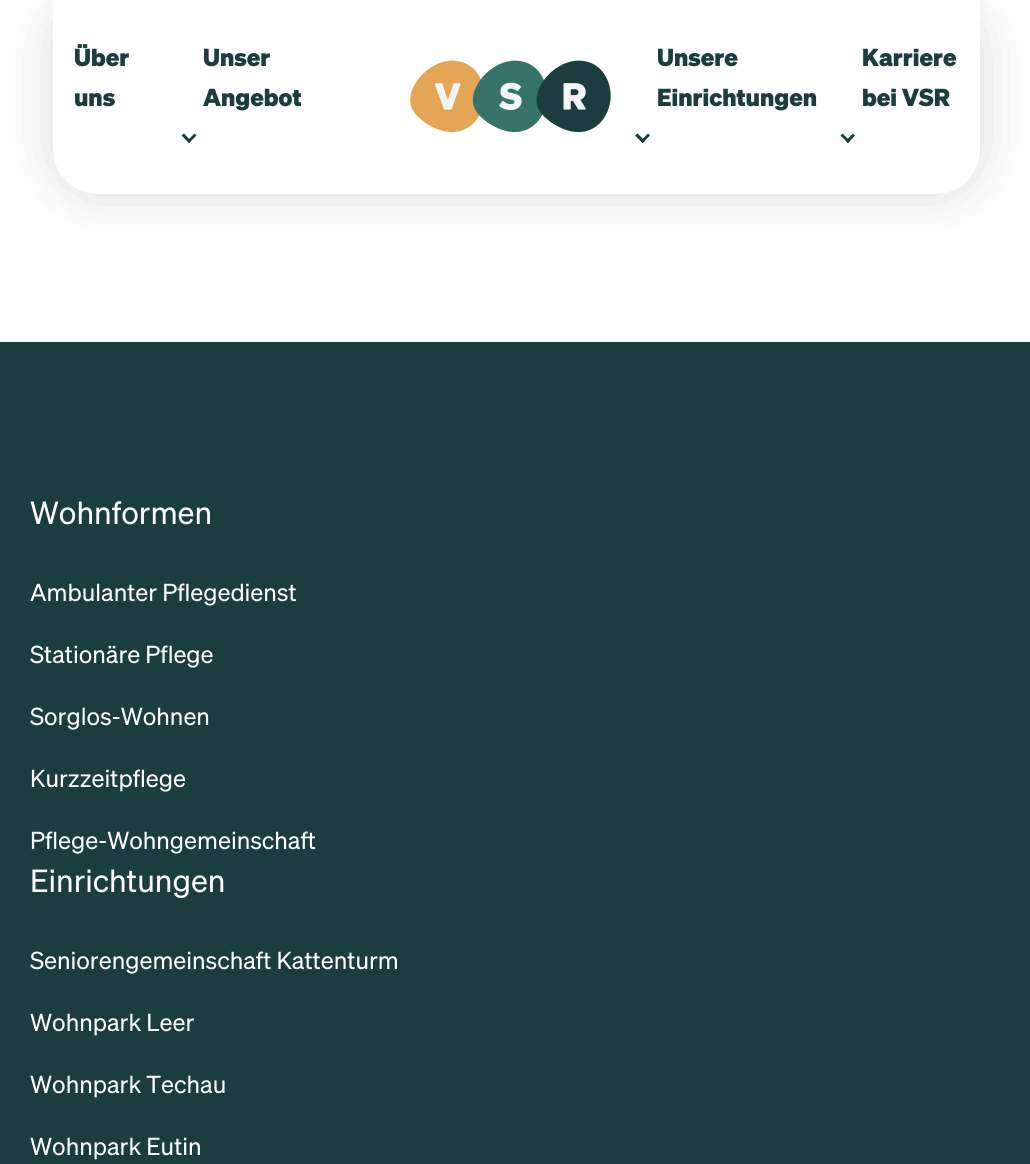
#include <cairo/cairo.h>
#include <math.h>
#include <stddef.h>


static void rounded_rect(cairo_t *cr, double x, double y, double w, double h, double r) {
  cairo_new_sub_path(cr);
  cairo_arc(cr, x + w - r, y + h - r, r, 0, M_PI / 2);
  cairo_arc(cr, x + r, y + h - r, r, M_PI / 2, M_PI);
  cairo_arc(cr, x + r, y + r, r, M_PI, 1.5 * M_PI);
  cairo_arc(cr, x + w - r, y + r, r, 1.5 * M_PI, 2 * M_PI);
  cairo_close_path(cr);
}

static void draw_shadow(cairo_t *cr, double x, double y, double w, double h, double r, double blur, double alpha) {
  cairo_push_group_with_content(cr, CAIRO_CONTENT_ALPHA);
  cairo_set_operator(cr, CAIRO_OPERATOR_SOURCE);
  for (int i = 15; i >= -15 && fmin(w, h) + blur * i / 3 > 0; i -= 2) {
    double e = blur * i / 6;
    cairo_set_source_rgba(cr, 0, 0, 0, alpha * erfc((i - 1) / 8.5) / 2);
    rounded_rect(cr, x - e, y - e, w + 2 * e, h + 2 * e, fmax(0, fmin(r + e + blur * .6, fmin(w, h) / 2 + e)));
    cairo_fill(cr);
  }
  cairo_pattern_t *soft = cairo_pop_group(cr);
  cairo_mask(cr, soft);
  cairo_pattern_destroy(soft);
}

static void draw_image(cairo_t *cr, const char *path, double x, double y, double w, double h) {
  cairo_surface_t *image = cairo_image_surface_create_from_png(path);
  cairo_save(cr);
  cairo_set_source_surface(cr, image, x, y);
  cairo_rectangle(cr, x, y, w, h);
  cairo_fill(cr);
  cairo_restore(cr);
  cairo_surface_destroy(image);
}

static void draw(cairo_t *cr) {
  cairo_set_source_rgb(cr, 1, 1, 1);
  cairo_paint(cr);
  cairo_set_source_rgb(cr, 0, 0, 0);
  draw_shadow(cr, 53, 0, 927, 194, 45, 26, 0.15);
  cairo_set_source_rgb(cr, 1, 1, 1);
  cairo_new_path(cr);
  cairo_move_to(cr, 53, 0);
  cairo_line_to(cr, 980, 0);
  cairo_line_to(cr, 980, 149);
  cairo_curve_to(cr, 980, 174, 960, 194, 935, 194);
  cairo_line_to(cr, 98, 194);
  cairo_curve_to(cr, 73, 194, 53, 174, 53, 149);
  cairo_close_path(cr);
  cairo_fill(cr);
  cairo_set_source_rgb(cr, 27 / 255.0, 61 / 255.0, 61 / 255.0);
  cairo_new_path(cr);
  cairo_move_to(cr, 194.5, 133.5);
  cairo_line_to(cr, 196.5, 135.5);
  cairo_line_to(cr, 189, 143);
  cairo_line_to(cr, 187, 141);
  cairo_close_path(cr);
  cairo_fill(cr);
  cairo_new_path(cr);
  cairo_move_to(cr, 184, 133.5);
  cairo_line_to(cr, 191, 141);
  cairo_line_to(cr, 189, 143);
  cairo_line_to(cr, 181.5, 135.5);
  cairo_close_path(cr);
  cairo_fill(cr);
  draw_image(cr, "images/1.png", 410, 60, 201, 73);
  cairo_new_path(cr);
  cairo_move_to(cr, 648, 133.5);
  cairo_line_to(cr, 650, 135.5);
  cairo_line_to(cr, 642.5, 143);
  cairo_line_to(cr, 640.5, 141);
  cairo_close_path(cr);
  cairo_fill(cr);
  cairo_new_path(cr);
  cairo_move_to(cr, 637.5, 133.5);
  cairo_line_to(cr, 645, 141);
  cairo_line_to(cr, 642.5, 143);
  cairo_line_to(cr, 635, 135.5);
  cairo_close_path(cr);
  cairo_fill(cr);
  cairo_new_path(cr);
  cairo_move_to(cr, 853, 133.5);
  cairo_line_to(cr, 855, 135.5);
  cairo_line_to(cr, 848, 143);
  cairo_line_to(cr, 845.5, 141);
  cairo_close_path(cr);
  cairo_fill(cr);
  cairo_new_path(cr);
  cairo_move_to(cr, 842.5, 133.5);
  cairo_line_to(cr, 850, 141);
  cairo_line_to(cr, 848, 143);
  cairo_line_to(cr, 840.5, 135.5);
  cairo_close_path(cr);
  cairo_fill(cr);
  cairo_rectangle(cr, 0, 342, 1030, 822);
  cairo_fill(cr);
  cairo_select_font_face(cr, "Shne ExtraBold", CAIRO_FONT_SLANT_NORMAL, CAIRO_FONT_WEIGHT_NORMAL);
  cairo_set_font_size(cr, 24);
  cairo_move_to(cr, 74, 66);
  cairo_show_text(cr, "Über");
  cairo_move_to(cr, 74, 106);
  cairo_show_text(cr, "uns");
  cairo_move_to(cr, 203, 66);
  cairo_show_text(cr, "Unser");
  cairo_move_to(cr, 203, 106);
  cairo_show_text(cr, "Angebot");
  cairo_move_to(cr, 657, 66);
  cairo_show_text(cr, "Unsere");
  cairo_move_to(cr, 657, 106);
  cairo_show_text(cr, "Einrichtungen");
  cairo_move_to(cr, 862, 66);
  cairo_show_text(cr, "Karriere");
  cairo_move_to(cr, 862, 106);
  cairo_show_text(cr, "bei VSR");
  cairo_select_font_face(cr, "Shne", CAIRO_FONT_SLANT_NORMAL, CAIRO_FONT_WEIGHT_NORMAL);
  cairo_set_font_size(cr, 31.25);
  cairo_set_source_rgb(cr, 1, 1, 1);
  cairo_move_to(cr, 30, 524);
  cairo_show_text(cr, "Wohnformen");
  cairo_set_font_size(cr, 24);
  cairo_move_to(cr, 30, 601);
  cairo_show_text(cr, "Ambulanter Pflegedienst");
  cairo_move_to(cr, 30, 663);
  cairo_show_text(cr, "Stationäre Pflege");
  cairo_move_to(cr, 30, 725);
  cairo_show_text(cr, "Sorglos-Wohnen");
  cairo_move_to(cr, 30, 787);
  cairo_show_text(cr, "Kurzzeitpflege");
  cairo_move_to(cr, 30, 849);
  cairo_show_text(cr, "Pflege-Wohngemeinschaft");
  cairo_set_font_size(cr, 31.25);
  cairo_move_to(cr, 30, 892);
  cairo_show_text(cr, "Einrichtungen");
  cairo_set_font_size(cr, 24);
  cairo_move_to(cr, 30, 969);
  cairo_show_text(cr, "Seniorengemeinschaft Kattenturm");
  cairo_move_to(cr, 30, 1031);
  cairo_show_text(cr, "Wohnpark Leer");
  cairo_move_to(cr, 30, 1093);
  cairo_show_text(cr, "Wohnpark Techau");
  cairo_move_to(cr, 30, 1155);
  cairo_show_text(cr, "Wohnpark Eutin");
}

int main(void) {
  cairo_surface_t *surface = cairo_image_surface_create(CAIRO_FORMAT_RGB24, 1030, 1164);
  cairo_t *cr = cairo_create(surface);
  cairo_font_options_t *options = cairo_font_options_create();
  cairo_font_options_set_hint_metrics(options, CAIRO_HINT_METRICS_OFF);
  cairo_font_options_set_hint_style(options, CAIRO_HINT_STYLE_NONE);
  cairo_set_font_options(cr, options);
  cairo_set_miter_limit(cr, 4);
  draw(cr);
  cairo_surface_write_to_png(surface, "out.png");
  cairo_font_options_destroy(options);
  cairo_destroy(cr);
  cairo_surface_destroy(surface);
  return 0;
}
